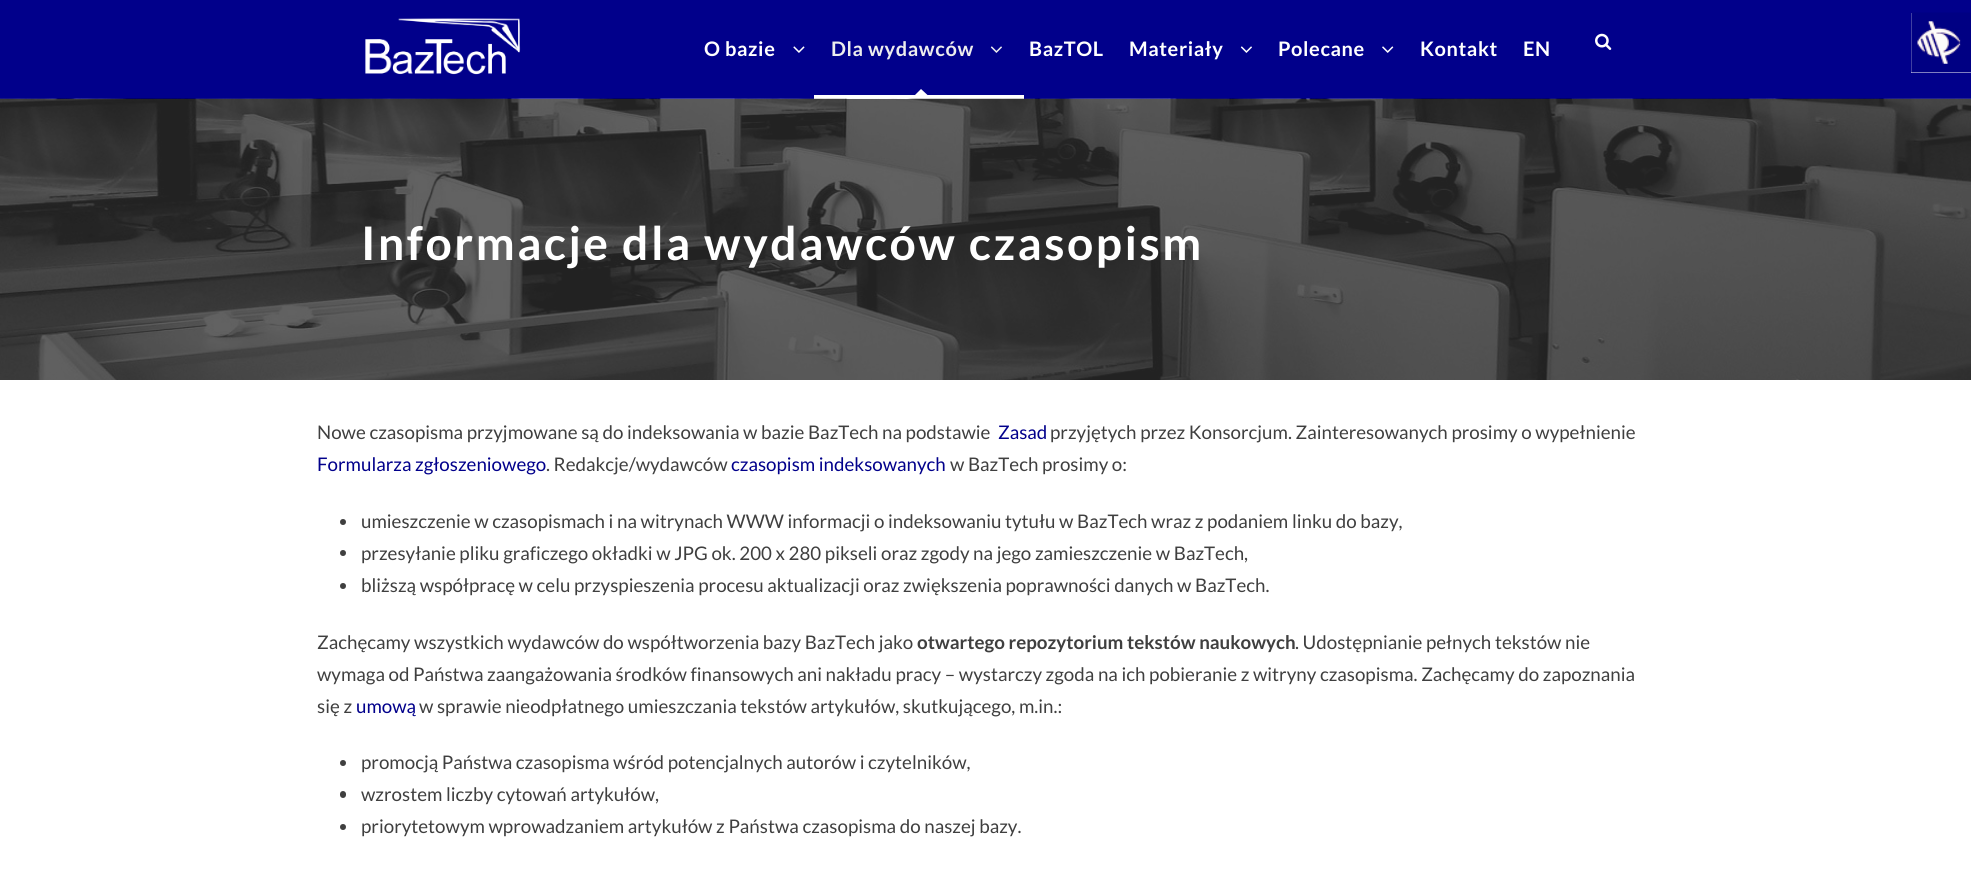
#include <cairo/cairo.h>
#include <math.h>
#include <stddef.h>


static void draw_spaced(cairo_t *cr, double x, double y, const char *s, double letter, double word) {
  cairo_move_to(cr, x, y);
  while (*s) {
    char ch[5] = {0};
    int n = 0;
    do ch[n++] = *s++; while ((*s & 0xC0) == 0x80);
    cairo_show_text(cr, ch);
    cairo_rel_move_to(cr, letter + word * (*ch == ' '), 0);
  }
}

static void rounded_rect(cairo_t *cr, double x, double y, double w, double h, double r) {
  cairo_new_sub_path(cr);
  cairo_arc(cr, x + w - r, y + h - r, r, 0, M_PI / 2);
  cairo_arc(cr, x + r, y + h - r, r, M_PI / 2, M_PI);
  cairo_arc(cr, x + r, y + r, r, M_PI, 1.5 * M_PI);
  cairo_arc(cr, x + w - r, y + r, r, 1.5 * M_PI, 2 * M_PI);
  cairo_close_path(cr);
}

static void draw_image(cairo_t *cr, const char *path, double x, double y, double w, double h) {
  cairo_surface_t *image = cairo_image_surface_create_from_png(path);
  cairo_save(cr);
  cairo_set_source_surface(cr, image, x, y);
  cairo_rectangle(cr, x, y, w, h);
  cairo_fill(cr);
  cairo_restore(cr);
  cairo_surface_destroy(image);
}

static void draw(cairo_t *cr) {
  cairo_set_source_rgb(cr, 1, 1, 1);
  cairo_paint(cr);
  cairo_set_source_rgb(cr, 1 / 255.0, 0, 139 / 255.0);
  cairo_rectangle(cr, 0, 0, 1971, 99);
  cairo_fill(cr);
  draw_image(cr, "images/1.png", 365, 18, 156, 57);
  draw_image(cr, "images/2.png", 793, 46, 12, 7);
  draw_image(cr, "images/3.png", 990, 46, 12, 7);
  draw_image(cr, "images/4.png", 1240, 46, 12, 7);
  draw_image(cr, "images/5.png", 1382, 46, 12, 7);
  cairo_set_source_rgb(cr, 1, 1, 1);
  cairo_rectangle(cr, 814, 95, 210, 4);
  cairo_fill(cr);
  cairo_new_path(cr);
  cairo_move_to(cr, 927.5, 95);
  cairo_line_to(cr, 915, 95);
  cairo_line_to(cr, 921, 89);
  cairo_close_path(cr);
  cairo_fill(cr);
  draw_image(cr, "images/6.png", 1595, 33, 17, 17);
  draw_image(cr, "images/7.png", 0, 98, 1971, 282);
  cairo_set_source_rgb(cr, 63 / 255.0, 63 / 255.0, 63 / 255.0);
  cairo_arc(cr, 343, 522, 3, 0, 2 * M_PI);
  cairo_fill(cr);
  cairo_arc(cr, 343, 553, 3, 0, 2 * M_PI);
  cairo_fill(cr);
  cairo_arc(cr, 343, 586, 3, 0, 2 * M_PI);
  cairo_fill(cr);
  cairo_arc(cr, 343, 763, 3, 0, 2 * M_PI);
  cairo_fill(cr);
  rounded_rect(cr, 340, 791, 6, 7, 3);
  cairo_fill(cr);
  cairo_arc(cr, 343, 827, 3, 0, 2 * M_PI);
  cairo_fill(cr);
  cairo_set_source_rgb(cr, 1, 1, 1);
  cairo_rectangle(cr, 1911, 13, 60, 60);
  cairo_fill(cr);
  draw_image(cr, "images/8.png", 1911, 12, 60, 61);
  cairo_select_font_face(cr, "Lato", CAIRO_FONT_SLANT_NORMAL, CAIRO_FONT_WEIGHT_BOLD);
  cairo_set_font_size(cr, 20);
  draw_spaced(cr, 704, 56, "O bazie", 0.6, 0);
  cairo_set_source_rgb(cr, 237 / 255.0, 237 / 255.0, 237 / 255.0);
  draw_spaced(cr, 831, 56, "Dla wydawców", 0.6, 0);
  cairo_set_source_rgb(cr, 1, 1, 1);
  draw_spaced(cr, 1029, 56, "BazTOL", 0.6, 0);
  draw_spaced(cr, 1129, 56, "Materiały", 0.6, 0);
  draw_spaced(cr, 1278, 56, "Polecane", 0.6, 0);
  draw_spaced(cr, 1420, 56, "Kontakt", 0.6, 0);
  draw_spaced(cr, 1523, 56, "EN", 0.6, 0);
  cairo_set_font_size(cr, 46.25);
  draw_spaced(cr, 361, 260, "Informacje dla wydawców czasopism", 2.5, 0);
  cairo_select_font_face(cr, "Lato", CAIRO_FONT_SLANT_NORMAL, CAIRO_FONT_WEIGHT_NORMAL);
  cairo_set_font_size(cr, 18.75);
  cairo_set_source_rgb(cr, 63 / 255.0, 63 / 255.0, 63 / 255.0);
  cairo_move_to(cr, 317, 439);
  cairo_show_text(cr, "Nowe czasopisma przyjmowane są do indeksowania w bazie BazTech na podstawie");
  cairo_set_source_rgb(cr, 1 / 255.0, 0, 139 / 255.0);
  cairo_move_to(cr, 998, 439);
  cairo_show_text(cr, "Zasad");
  cairo_set_source_rgb(cr, 63 / 255.0, 63 / 255.0, 63 / 255.0);
  cairo_move_to(cr, 1050, 439);
  cairo_show_text(cr, "przyjętych przez Konsorcjum. Zainteresowanych prosimy o wypełnienie");
  cairo_set_source_rgb(cr, 1 / 255.0, 0, 139 / 255.0);
  cairo_move_to(cr, 317, 471);
  cairo_show_text(cr, "Formularza zgłoszeniowego");
  cairo_set_source_rgb(cr, 63 / 255.0, 63 / 255.0, 63 / 255.0);
  cairo_move_to(cr, 546, 471);
  cairo_show_text(cr, ". Redakcje/wydawców");
  cairo_set_source_rgb(cr, 1 / 255.0, 0, 139 / 255.0);
  cairo_move_to(cr, 731, 471);
  cairo_show_text(cr, "czasopism indeksowanych");
  cairo_set_source_rgb(cr, 63 / 255.0, 63 / 255.0, 63 / 255.0);
  cairo_move_to(cr, 950, 471);
  cairo_show_text(cr, "w BazTech prosimy o:");
  cairo_move_to(cr, 361, 528);
  cairo_show_text(cr, "umieszczenie w czasopismach i na witrynach WWW informacji o indeksowaniu tytułu w BazTech wraz z podaniem linku do bazy,");
  cairo_move_to(cr, 361, 560);
  cairo_show_text(cr, "przesyłanie pliku graficzego okładki w JPG ok. 200 x 280 pikseli oraz zgody na jego zamieszczenie w BazTech,");
  cairo_move_to(cr, 361, 592);
  cairo_show_text(cr, "bliższą współpracę w celu przyspieszenia procesu aktualizacji oraz zwiększenia poprawności danych w BazTech.");
  cairo_move_to(cr, 317, 649);
  cairo_show_text(cr, "Zachęcamy wszystkich wydawców do współtworzenia bazy BazTech jako");
  cairo_select_font_face(cr, "Lato", CAIRO_FONT_SLANT_NORMAL, CAIRO_FONT_WEIGHT_BOLD);
  cairo_move_to(cr, 917, 649);
  cairo_show_text(cr, "otwartego repozytorium tekstów naukowych");
  cairo_select_font_face(cr, "Lato", CAIRO_FONT_SLANT_NORMAL, CAIRO_FONT_WEIGHT_NORMAL);
  cairo_move_to(cr, 1295, 649);
  cairo_show_text(cr, ". Udostępnianie pełnych tekstów nie");
  cairo_move_to(cr, 317, 681);
  cairo_show_text(cr, "wymaga od Państwa zaangażowania środków finansowych ani nakładu pracy – wystarczy zgoda na ich pobieranie z witryny czasopisma. Zachęcamy do zapoznania");
  cairo_move_to(cr, 317, 713);
  cairo_show_text(cr, "się z");
  cairo_set_source_rgb(cr, 1 / 255.0, 0, 139 / 255.0);
  cairo_move_to(cr, 356, 713);
  cairo_show_text(cr, "umową");
  cairo_set_source_rgb(cr, 63 / 255.0, 63 / 255.0, 63 / 255.0);
  cairo_move_to(cr, 419, 713);
  cairo_show_text(cr, "w sprawie nieodpłatnego umieszczania tekstów artykułów, skutkującego, m.in.:");
  cairo_move_to(cr, 361, 769);
  cairo_show_text(cr, "promocją Państwa czasopisma wśród potencjalnych autorów i czytelników,");
  cairo_move_to(cr, 361, 801);
  cairo_show_text(cr, "wzrostem liczby cytowań artykułów,");
  cairo_move_to(cr, 361, 833);
  cairo_show_text(cr, "priorytetowym wprowadzaniem artykułów z Państwa czasopisma do naszej bazy.");
}

int main(void) {
  cairo_surface_t *surface = cairo_image_surface_create(CAIRO_FORMAT_RGB24, 1971, 884);
  cairo_t *cr = cairo_create(surface);
  cairo_font_options_t *options = cairo_font_options_create();
  cairo_font_options_set_hint_metrics(options, CAIRO_HINT_METRICS_OFF);
  cairo_font_options_set_hint_style(options, CAIRO_HINT_STYLE_NONE);
  cairo_set_font_options(cr, options);
  cairo_set_miter_limit(cr, 4);
  draw(cr);
  cairo_surface_write_to_png(surface, "out.png");
  cairo_font_options_destroy(options);
  cairo_destroy(cr);
  cairo_surface_destroy(surface);
  return 0;
}
